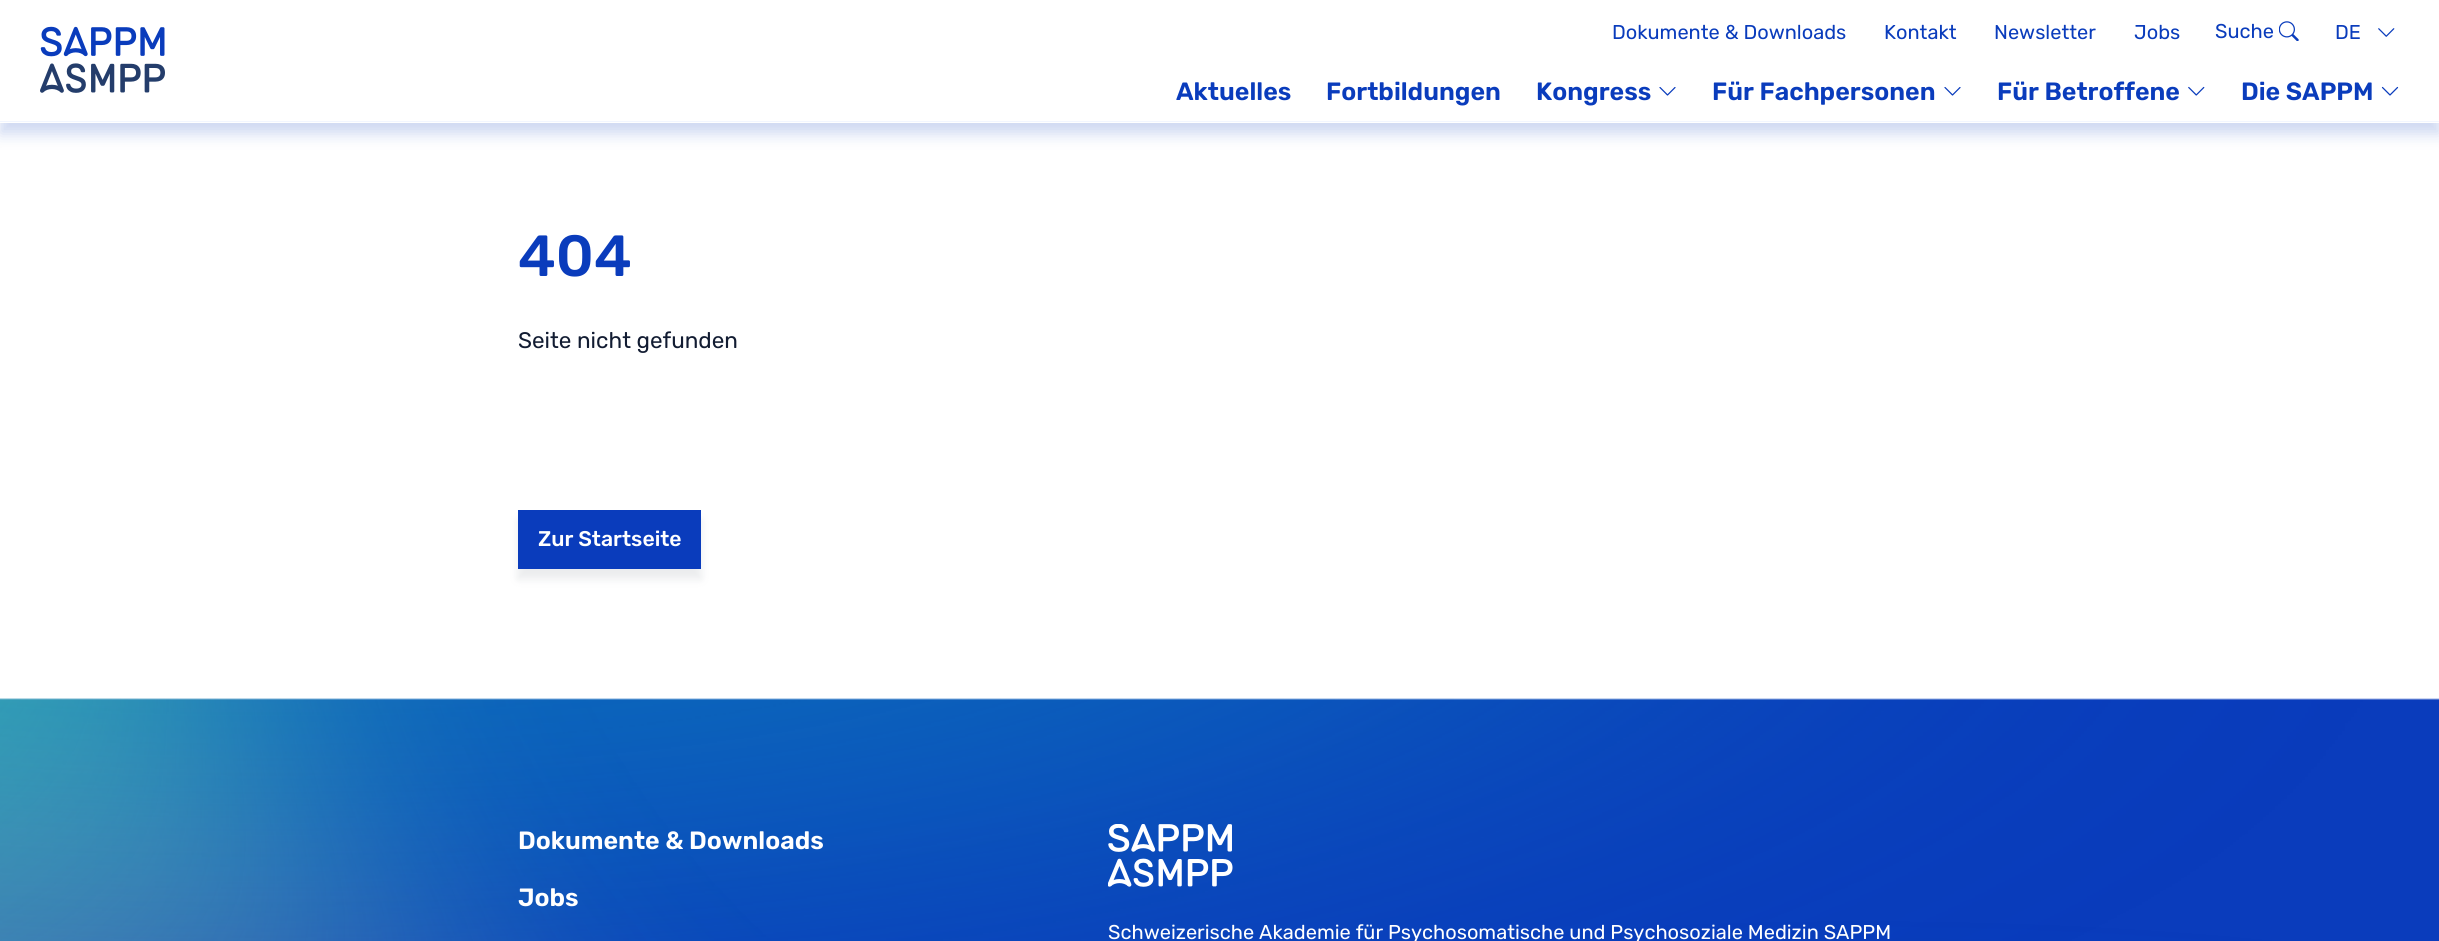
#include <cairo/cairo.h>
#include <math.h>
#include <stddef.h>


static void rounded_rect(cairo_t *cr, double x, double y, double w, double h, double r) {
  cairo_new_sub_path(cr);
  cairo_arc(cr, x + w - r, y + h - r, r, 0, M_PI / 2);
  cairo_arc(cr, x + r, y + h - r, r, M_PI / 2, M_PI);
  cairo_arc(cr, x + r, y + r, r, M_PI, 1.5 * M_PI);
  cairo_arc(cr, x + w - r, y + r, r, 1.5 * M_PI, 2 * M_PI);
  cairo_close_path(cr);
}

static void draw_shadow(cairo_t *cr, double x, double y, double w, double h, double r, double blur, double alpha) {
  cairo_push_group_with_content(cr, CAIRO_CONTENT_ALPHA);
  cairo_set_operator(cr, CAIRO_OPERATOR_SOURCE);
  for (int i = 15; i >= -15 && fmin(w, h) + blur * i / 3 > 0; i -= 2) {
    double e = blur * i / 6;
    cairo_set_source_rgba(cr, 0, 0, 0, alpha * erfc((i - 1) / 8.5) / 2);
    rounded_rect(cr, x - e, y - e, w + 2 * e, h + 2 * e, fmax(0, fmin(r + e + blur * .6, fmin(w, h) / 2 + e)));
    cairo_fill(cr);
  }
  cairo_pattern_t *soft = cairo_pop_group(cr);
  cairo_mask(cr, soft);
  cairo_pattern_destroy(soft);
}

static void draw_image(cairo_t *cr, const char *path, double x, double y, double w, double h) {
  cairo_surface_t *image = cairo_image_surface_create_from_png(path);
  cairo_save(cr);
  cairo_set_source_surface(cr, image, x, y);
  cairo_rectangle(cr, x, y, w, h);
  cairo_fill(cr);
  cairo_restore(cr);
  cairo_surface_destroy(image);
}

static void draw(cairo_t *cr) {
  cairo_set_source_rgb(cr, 1, 1, 1);
  cairo_paint(cr);
  cairo_set_source_rgb(cr, 10 / 255.0, 60 / 255.0, 188 / 255.0);
  draw_shadow(cr, 0, 11, 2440, 123, 0, 7.5, 0.2);
  cairo_set_source_rgb(cr, 1, 1, 1);
  cairo_rectangle(cr, 0, 0, 2439, 123);
  cairo_fill(cr);
  cairo_set_source_rgb(cr, 242 / 255.0, 246 / 255.0, 1);
  cairo_rectangle(cr, 0, 121, 2439, 1);
  cairo_fill(cr);
  draw_image(cr, "images/1.png", 40, 26, 125, 67);
  draw_image(cr, "images/2.png", 2279, 21, 20, 20);
  draw_image(cr, "images/3.png", 2378, 28, 17, 9);
  draw_image(cr, "images/4.png", 1659, 87, 17, 9);
  draw_image(cr, "images/4.png", 1944, 87, 17, 9);
  draw_image(cr, "images/5.png", 2188, 86, 17, 10);
  draw_image(cr, "images/6.png", 2381, 86, 18, 10);
  cairo_set_source_rgb(cr, 134 / 255.0, 140 / 255.0, 150 / 255.0);
  draw_shadow(cr, 518, 520, 183, 59, 0, 4.5, 0.17);
  cairo_set_source_rgb(cr, 10 / 255.0, 60 / 255.0, 188 / 255.0);
  cairo_rectangle(cr, 518, 510, 183, 59);
  cairo_fill(cr);
  draw_image(cr, "images/7.png", 0, 698, 2439, 243);
  draw_image(cr, "images/8.png", 1108, 824, 125, 63);
  cairo_select_font_face(cr, "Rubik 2 Light", CAIRO_FONT_SLANT_NORMAL, CAIRO_FONT_WEIGHT_NORMAL);
  cairo_set_font_size(cr, 20);
  cairo_move_to(cr, 1612, 39);
  cairo_show_text(cr, "Dokumente & Downloads");
  cairo_move_to(cr, 1884, 39);
  cairo_show_text(cr, "Kontakt");
  cairo_move_to(cr, 1994, 39);
  cairo_show_text(cr, "Newsletter");
  cairo_move_to(cr, 2134, 39);
  cairo_show_text(cr, "Jobs");
  cairo_move_to(cr, 2215, 38);
  cairo_show_text(cr, "Suche");
  cairo_move_to(cr, 2335, 39);
  cairo_show_text(cr, "DE");
  cairo_select_font_face(cr, "Rubik SemiBold", CAIRO_FONT_SLANT_NORMAL, CAIRO_FONT_WEIGHT_NORMAL);
  cairo_set_font_size(cr, 25);
  cairo_move_to(cr, 1176, 100);
  cairo_show_text(cr, "Aktuelles");
  cairo_move_to(cr, 1326, 100);
  cairo_show_text(cr, "Fortbildungen");
  cairo_move_to(cr, 1536, 100);
  cairo_show_text(cr, "Kongress");
  cairo_move_to(cr, 1712, 100);
  cairo_show_text(cr, "Für Fachpersonen");
  cairo_move_to(cr, 1997, 100);
  cairo_show_text(cr, "Für Betroffene");
  cairo_move_to(cr, 2241, 100);
  cairo_show_text(cr, "Die SAPPM");
  cairo_select_font_face(cr, "Rubik Light", CAIRO_FONT_SLANT_NORMAL, CAIRO_FONT_WEIGHT_NORMAL);
  cairo_set_font_size(cr, 58);
  cairo_move_to(cr, 518, 276);
  cairo_show_text(cr, "404");
  cairo_select_font_face(cr, "Rubik 2 Light", CAIRO_FONT_SLANT_NORMAL, CAIRO_FONT_WEIGHT_NORMAL);
  cairo_set_font_size(cr, 22.5);
  cairo_set_source_rgb(cr, 18 / 255.0, 28 / 255.0, 50 / 255.0);
  cairo_move_to(cr, 518, 348);
  cairo_show_text(cr, "Seite nicht gefunden");
  cairo_select_font_face(cr, "Rubik Light", CAIRO_FONT_SLANT_NORMAL, CAIRO_FONT_WEIGHT_NORMAL);
  cairo_set_font_size(cr, 21.25);
  cairo_set_source_rgb(cr, 1, 1, 1);
  cairo_move_to(cr, 538, 546);
  cairo_show_text(cr, "Zur Startseite");
  cairo_select_font_face(cr, "Rubik SemiBold", CAIRO_FONT_SLANT_NORMAL, CAIRO_FONT_WEIGHT_NORMAL);
  cairo_set_font_size(cr, 25);
  cairo_move_to(cr, 518, 849);
  cairo_show_text(cr, "Dokumente & Downloads");
  cairo_move_to(cr, 518, 906);
  cairo_show_text(cr, "Jobs");
  cairo_select_font_face(cr, "Rubik 2 Light", CAIRO_FONT_SLANT_NORMAL, CAIRO_FONT_WEIGHT_NORMAL);
  cairo_set_font_size(cr, 20);
  cairo_move_to(cr, 1108, 939);
  cairo_show_text(cr, "Schweizerische Akademie für Psychosomatische und Psychosoziale Medizin SAPPM");
}

int main(void) {
  cairo_surface_t *surface = cairo_image_surface_create(CAIRO_FORMAT_RGB24, 2439, 941);
  cairo_t *cr = cairo_create(surface);
  cairo_font_options_t *options = cairo_font_options_create();
  cairo_font_options_set_hint_metrics(options, CAIRO_HINT_METRICS_OFF);
  cairo_font_options_set_hint_style(options, CAIRO_HINT_STYLE_NONE);
  cairo_set_font_options(cr, options);
  cairo_set_miter_limit(cr, 4);
  draw(cr);
  cairo_surface_write_to_png(surface, "out.png");
  cairo_font_options_destroy(options);
  cairo_destroy(cr);
  cairo_surface_destroy(surface);
  return 0;
}
